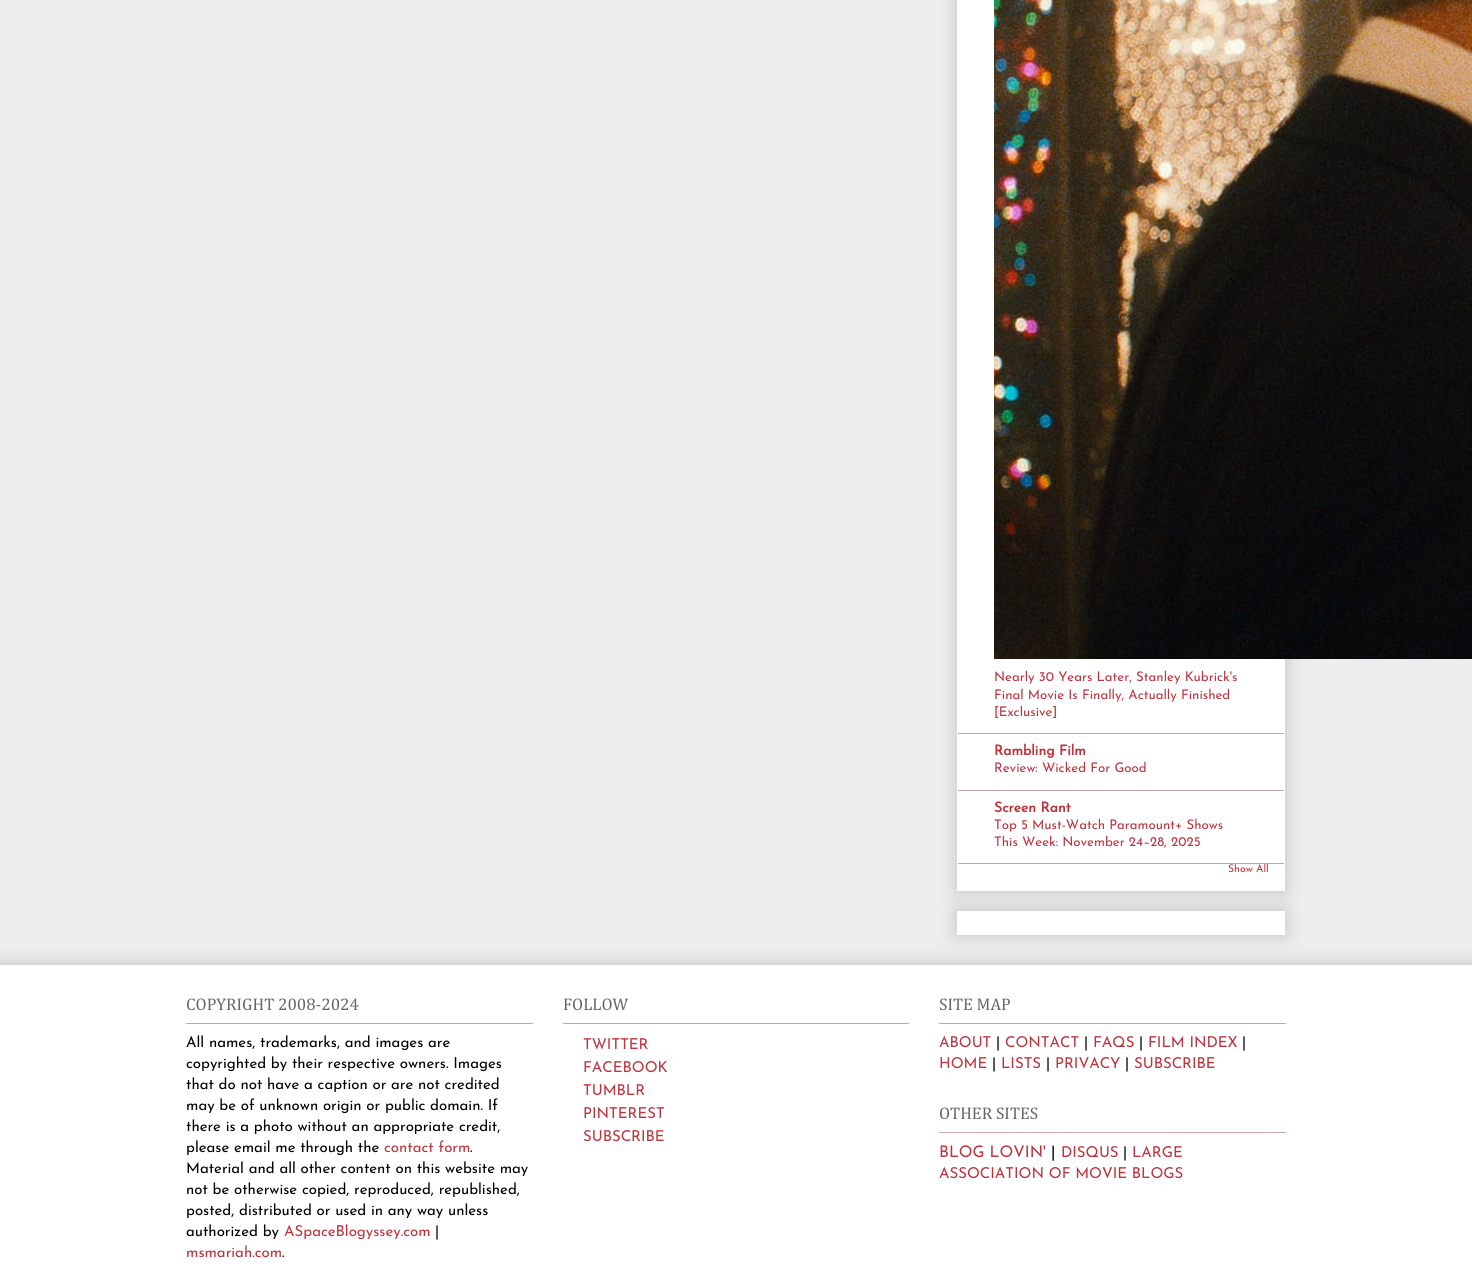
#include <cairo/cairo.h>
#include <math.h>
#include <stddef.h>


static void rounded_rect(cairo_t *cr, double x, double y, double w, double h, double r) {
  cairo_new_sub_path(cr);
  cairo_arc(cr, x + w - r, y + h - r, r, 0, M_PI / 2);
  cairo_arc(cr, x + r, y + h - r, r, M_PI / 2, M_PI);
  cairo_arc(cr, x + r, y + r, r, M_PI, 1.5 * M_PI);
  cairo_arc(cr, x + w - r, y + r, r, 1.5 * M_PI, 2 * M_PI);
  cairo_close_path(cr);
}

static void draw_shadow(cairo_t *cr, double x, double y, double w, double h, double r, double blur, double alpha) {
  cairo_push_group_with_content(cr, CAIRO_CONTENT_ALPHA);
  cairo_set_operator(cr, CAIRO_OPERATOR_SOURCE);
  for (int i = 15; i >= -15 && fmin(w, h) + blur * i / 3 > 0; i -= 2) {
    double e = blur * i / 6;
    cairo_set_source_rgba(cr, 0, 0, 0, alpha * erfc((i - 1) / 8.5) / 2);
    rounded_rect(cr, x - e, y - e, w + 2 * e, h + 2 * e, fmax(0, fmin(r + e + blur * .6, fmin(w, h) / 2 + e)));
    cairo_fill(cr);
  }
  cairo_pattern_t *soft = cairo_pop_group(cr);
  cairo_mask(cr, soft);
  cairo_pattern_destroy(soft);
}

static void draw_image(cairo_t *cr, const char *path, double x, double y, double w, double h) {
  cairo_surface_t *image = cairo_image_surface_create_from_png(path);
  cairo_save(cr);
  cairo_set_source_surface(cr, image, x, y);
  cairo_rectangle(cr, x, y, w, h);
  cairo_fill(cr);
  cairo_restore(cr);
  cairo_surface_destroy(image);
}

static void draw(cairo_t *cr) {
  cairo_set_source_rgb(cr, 238 / 255.0, 238 / 255.0, 238 / 255.0);
  cairo_paint(cr);
  cairo_set_source_rgb(cr, 0, 0, 0);
  draw_shadow(cr, 957, -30, 328, 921, 0, 10, 0.2);
  cairo_set_source_rgb(cr, 1, 1, 1);
  cairo_rectangle(cr, 957, 0, 328, 891);
  cairo_fill(cr);
  cairo_set_source_rgb(cr, 201 / 255.0, 164 / 255.0, 167 / 255.0);
  cairo_rectangle(cr, 958, 733, 326, 1);
  cairo_fill(cr);
  draw_image(cr, "images/1.png", 994, 0, 478, 659);
  cairo_rectangle(cr, 958, 790, 326, 1);
  cairo_fill(cr);
  cairo_rectangle(cr, 958, 863, 326, 1);
  cairo_fill(cr);
  cairo_set_source_rgb(cr, 0, 0, 0);
  draw_shadow(cr, 957, 911, 328, 24, 0, 10, 0.2);
  cairo_set_source_rgb(cr, 1, 1, 1);
  cairo_rectangle(cr, 957, 911, 328, 24);
  cairo_fill(cr);
  cairo_set_source_rgb(cr, 0, 0, 0);
  draw_shadow(cr, -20, 965, 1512, 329, 0, 10, 0.2);
  cairo_set_source_rgb(cr, 1, 1, 1);
  cairo_rectangle(cr, 0, 965, 1472, 311);
  cairo_fill(cr);
  cairo_set_source_rgb(cr, 201 / 255.0, 164 / 255.0, 167 / 255.0);
  cairo_rectangle(cr, 186, 1023, 347, 1);
  cairo_fill(cr);
  cairo_rectangle(cr, 563, 1023, 346, 1);
  cairo_fill(cr);
  cairo_rectangle(cr, 939, 1023, 347, 1);
  cairo_fill(cr);
  cairo_rectangle(cr, 939, 1132, 347, 1);
  cairo_fill(cr);
  cairo_select_font_face(cr, "Josefin Sans Thin", CAIRO_FONT_SLANT_NORMAL, CAIRO_FONT_WEIGHT_NORMAL);
  cairo_set_font_size(cr, 13.25);
  cairo_set_source_rgb(cr, 190 / 255.0, 52 / 255.0, 61 / 255.0);
  cairo_move_to(cr, 994, 681);
  cairo_show_text(cr, "Nearly 30 Years Later, Stanley Kubrick's");
  cairo_move_to(cr, 994, 699);
  cairo_show_text(cr, "Final Movie Is Finally, Actually Finished");
  cairo_move_to(cr, 994, 716);
  cairo_show_text(cr, "[Exclusive]");
  cairo_select_font_face(cr, "Josefin Sans", CAIRO_FONT_SLANT_NORMAL, CAIRO_FONT_WEIGHT_BOLD);
  cairo_set_font_size(cr, 14);
  cairo_move_to(cr, 994, 755);
  cairo_show_text(cr, "Rambling Film");
  cairo_select_font_face(cr, "Josefin Sans Thin", CAIRO_FONT_SLANT_NORMAL, CAIRO_FONT_WEIGHT_NORMAL);
  cairo_set_font_size(cr, 13.25);
  cairo_move_to(cr, 994, 772);
  cairo_show_text(cr, "Review: Wicked For Good");
  cairo_select_font_face(cr, "Josefin Sans", CAIRO_FONT_SLANT_NORMAL, CAIRO_FONT_WEIGHT_BOLD);
  cairo_set_font_size(cr, 14);
  cairo_move_to(cr, 994, 812);
  cairo_show_text(cr, "Screen Rant");
  cairo_select_font_face(cr, "Josefin Sans Thin", CAIRO_FONT_SLANT_NORMAL, CAIRO_FONT_WEIGHT_NORMAL);
  cairo_set_font_size(cr, 13.25);
  cairo_move_to(cr, 994, 829);
  cairo_show_text(cr, "Top 5 Must-Watch Paramount+ Shows");
  cairo_move_to(cr, 994, 846);
  cairo_show_text(cr, "This Week: November 24–28, 2025");
  cairo_set_font_size(cr, 10.5);
  cairo_move_to(cr, 1228, 872);
  cairo_show_text(cr, "Show All");
  cairo_select_font_face(cr, "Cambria", CAIRO_FONT_SLANT_NORMAL, CAIRO_FONT_WEIGHT_NORMAL);
  cairo_set_font_size(cr, 17);
  cairo_set_source_rgb(cr, 102 / 255.0, 102 / 255.0, 102 / 255.0);
  cairo_move_to(cr, 186, 1010);
  cairo_show_text(cr, "COPYRIGHT 2008-2024");
  cairo_select_font_face(cr, "Josefin Sans Thin", CAIRO_FONT_SLANT_NORMAL, CAIRO_FONT_WEIGHT_NORMAL);
  cairo_set_font_size(cr, 15);
  cairo_set_source_rgb(cr, 0, 0, 0);
  cairo_move_to(cr, 186, 1047);
  cairo_show_text(cr, "All names, trademarks, and images are");
  cairo_move_to(cr, 186, 1068);
  cairo_show_text(cr, "copyrighted by their respective owners. Images");
  cairo_move_to(cr, 186, 1089);
  cairo_show_text(cr, "that do not have a caption or are not credited");
  cairo_move_to(cr, 186, 1110);
  cairo_show_text(cr, "may be of unknown origin or public domain. If");
  cairo_move_to(cr, 186, 1131);
  cairo_show_text(cr, "there is a photo without an appropriate credit,");
  cairo_move_to(cr, 186, 1152);
  cairo_show_text(cr, "please email me through the");
  cairo_set_source_rgb(cr, 190 / 255.0, 52 / 255.0, 61 / 255.0);
  cairo_move_to(cr, 384, 1152);
  cairo_show_text(cr, "contact form");
  cairo_set_source_rgb(cr, 0, 0, 0);
  cairo_move_to(cr, 470, 1152);
  cairo_show_text(cr, ".");
  cairo_move_to(cr, 186, 1173);
  cairo_show_text(cr, "Material and all other content on this website may");
  cairo_move_to(cr, 186, 1194);
  cairo_show_text(cr, "not be otherwise copied, reproduced, republished,");
  cairo_move_to(cr, 186, 1215);
  cairo_show_text(cr, "posted, distributed or used in any way unless");
  cairo_move_to(cr, 186, 1236);
  cairo_show_text(cr, "authorized by");
  cairo_set_source_rgb(cr, 190 / 255.0, 52 / 255.0, 61 / 255.0);
  cairo_move_to(cr, 284, 1236);
  cairo_show_text(cr, "ASpaceBlogyssey.com");
  cairo_set_source_rgb(cr, 0, 0, 0);
  cairo_move_to(cr, 435, 1236);
  cairo_show_text(cr, "|");
  cairo_set_source_rgb(cr, 190 / 255.0, 52 / 255.0, 61 / 255.0);
  cairo_move_to(cr, 186, 1257);
  cairo_show_text(cr, "msmariah.com");
  cairo_set_source_rgb(cr, 0, 0, 0);
  cairo_move_to(cr, 282, 1257);
  cairo_show_text(cr, ".");
  cairo_select_font_face(cr, "Cambria", CAIRO_FONT_SLANT_NORMAL, CAIRO_FONT_WEIGHT_NORMAL);
  cairo_set_font_size(cr, 17);
  cairo_set_source_rgb(cr, 102 / 255.0, 102 / 255.0, 102 / 255.0);
  cairo_move_to(cr, 563, 1010);
  cairo_show_text(cr, "FOLLOW");
  cairo_select_font_face(cr, "Josefin Sans Thin", CAIRO_FONT_SLANT_NORMAL, CAIRO_FONT_WEIGHT_NORMAL);
  cairo_set_font_size(cr, 15);
  cairo_set_source_rgb(cr, 190 / 255.0, 52 / 255.0, 61 / 255.0);
  cairo_move_to(cr, 583, 1049);
  cairo_show_text(cr, "TWITTER");
  cairo_move_to(cr, 583, 1072);
  cairo_show_text(cr, "FACEBOOK");
  cairo_move_to(cr, 583, 1095);
  cairo_show_text(cr, "TUMBLR");
  cairo_move_to(cr, 583, 1118);
  cairo_show_text(cr, "PINTEREST");
  cairo_move_to(cr, 583, 1141);
  cairo_show_text(cr, "SUBSCRIBE");
  cairo_select_font_face(cr, "Cambria", CAIRO_FONT_SLANT_NORMAL, CAIRO_FONT_WEIGHT_NORMAL);
  cairo_set_font_size(cr, 17);
  cairo_set_source_rgb(cr, 102 / 255.0, 102 / 255.0, 102 / 255.0);
  cairo_move_to(cr, 939, 1010);
  cairo_show_text(cr, "SITE MAP");
  cairo_select_font_face(cr, "Josefin Sans Thin", CAIRO_FONT_SLANT_NORMAL, CAIRO_FONT_WEIGHT_NORMAL);
  cairo_set_font_size(cr, 15);
  cairo_set_source_rgb(cr, 190 / 255.0, 52 / 255.0, 61 / 255.0);
  cairo_move_to(cr, 939, 1047);
  cairo_show_text(cr, "ABOUT");
  cairo_set_source_rgb(cr, 0, 0, 0);
  cairo_move_to(cr, 996, 1047);
  cairo_show_text(cr, "|");
  cairo_set_source_rgb(cr, 190 / 255.0, 52 / 255.0, 61 / 255.0);
  cairo_move_to(cr, 1005, 1047);
  cairo_show_text(cr, "CONTACT");
  cairo_set_source_rgb(cr, 0, 0, 0);
  cairo_move_to(cr, 1084, 1047);
  cairo_show_text(cr, "|");
  cairo_set_source_rgb(cr, 190 / 255.0, 52 / 255.0, 61 / 255.0);
  cairo_move_to(cr, 1093, 1047);
  cairo_show_text(cr, "FAQS");
  cairo_set_source_rgb(cr, 0, 0, 0);
  cairo_move_to(cr, 1139, 1047);
  cairo_show_text(cr, "|");
  cairo_set_source_rgb(cr, 190 / 255.0, 52 / 255.0, 61 / 255.0);
  cairo_move_to(cr, 1148, 1047);
  cairo_show_text(cr, "FILM INDEX");
  cairo_set_source_rgb(cr, 0, 0, 0);
  cairo_move_to(cr, 1242, 1047);
  cairo_show_text(cr, "|");
  cairo_set_source_rgb(cr, 190 / 255.0, 52 / 255.0, 61 / 255.0);
  cairo_move_to(cr, 939, 1068);
  cairo_show_text(cr, "HOME");
  cairo_set_source_rgb(cr, 0, 0, 0);
  cairo_move_to(cr, 992, 1068);
  cairo_show_text(cr, "|");
  cairo_set_source_rgb(cr, 190 / 255.0, 52 / 255.0, 61 / 255.0);
  cairo_move_to(cr, 1001, 1068);
  cairo_show_text(cr, "LISTS");
  cairo_set_source_rgb(cr, 0, 0, 0);
  cairo_move_to(cr, 1046, 1068);
  cairo_show_text(cr, "|");
  cairo_set_source_rgb(cr, 190 / 255.0, 52 / 255.0, 61 / 255.0);
  cairo_move_to(cr, 1055, 1068);
  cairo_show_text(cr, "PRIVACY");
  cairo_set_source_rgb(cr, 0, 0, 0);
  cairo_move_to(cr, 1125, 1068);
  cairo_show_text(cr, "|");
  cairo_set_source_rgb(cr, 190 / 255.0, 52 / 255.0, 61 / 255.0);
  cairo_move_to(cr, 1134, 1068);
  cairo_show_text(cr, "SUBSCRIBE");
  cairo_select_font_face(cr, "Cambria", CAIRO_FONT_SLANT_NORMAL, CAIRO_FONT_WEIGHT_NORMAL);
  cairo_set_font_size(cr, 17);
  cairo_set_source_rgb(cr, 102 / 255.0, 102 / 255.0, 102 / 255.0);
  cairo_move_to(cr, 939, 1119);
  cairo_show_text(cr, "OTHER SITES");
  cairo_select_font_face(cr, "Josefin Sans Thin", CAIRO_FONT_SLANT_NORMAL, CAIRO_FONT_WEIGHT_NORMAL);
  cairo_set_font_size(cr, 16);
  cairo_set_source_rgb(cr, 190 / 255.0, 52 / 255.0, 61 / 255.0);
  cairo_move_to(cr, 939, 1157);
  cairo_show_text(cr, "BLOG LOVIN'");
  cairo_set_source_rgb(cr, 0, 0, 0);
  cairo_move_to(cr, 1051, 1157);
  cairo_show_text(cr, "|");
  cairo_set_font_size(cr, 15);
  cairo_set_source_rgb(cr, 190 / 255.0, 52 / 255.0, 61 / 255.0);
  cairo_move_to(cr, 1061, 1157);
  cairo_show_text(cr, "DISQUS");
  cairo_set_source_rgb(cr, 0, 0, 0);
  cairo_move_to(cr, 1123, 1157);
  cairo_show_text(cr, "|");
  cairo_set_source_rgb(cr, 190 / 255.0, 52 / 255.0, 61 / 255.0);
  cairo_move_to(cr, 1132, 1157);
  cairo_show_text(cr, "LARGE");
  cairo_move_to(cr, 939, 1178);
  cairo_show_text(cr, "ASSOCIATION OF MOVIE BLOGS");
}

int main(void) {
  cairo_surface_t *surface = cairo_image_surface_create(CAIRO_FORMAT_RGB24, 1472, 1276);
  cairo_t *cr = cairo_create(surface);
  cairo_font_options_t *options = cairo_font_options_create();
  cairo_font_options_set_hint_metrics(options, CAIRO_HINT_METRICS_OFF);
  cairo_font_options_set_hint_style(options, CAIRO_HINT_STYLE_NONE);
  cairo_set_font_options(cr, options);
  cairo_set_miter_limit(cr, 4);
  draw(cr);
  cairo_surface_write_to_png(surface, "out.png");
  cairo_font_options_destroy(options);
  cairo_destroy(cr);
  cairo_surface_destroy(surface);
  return 0;
}
